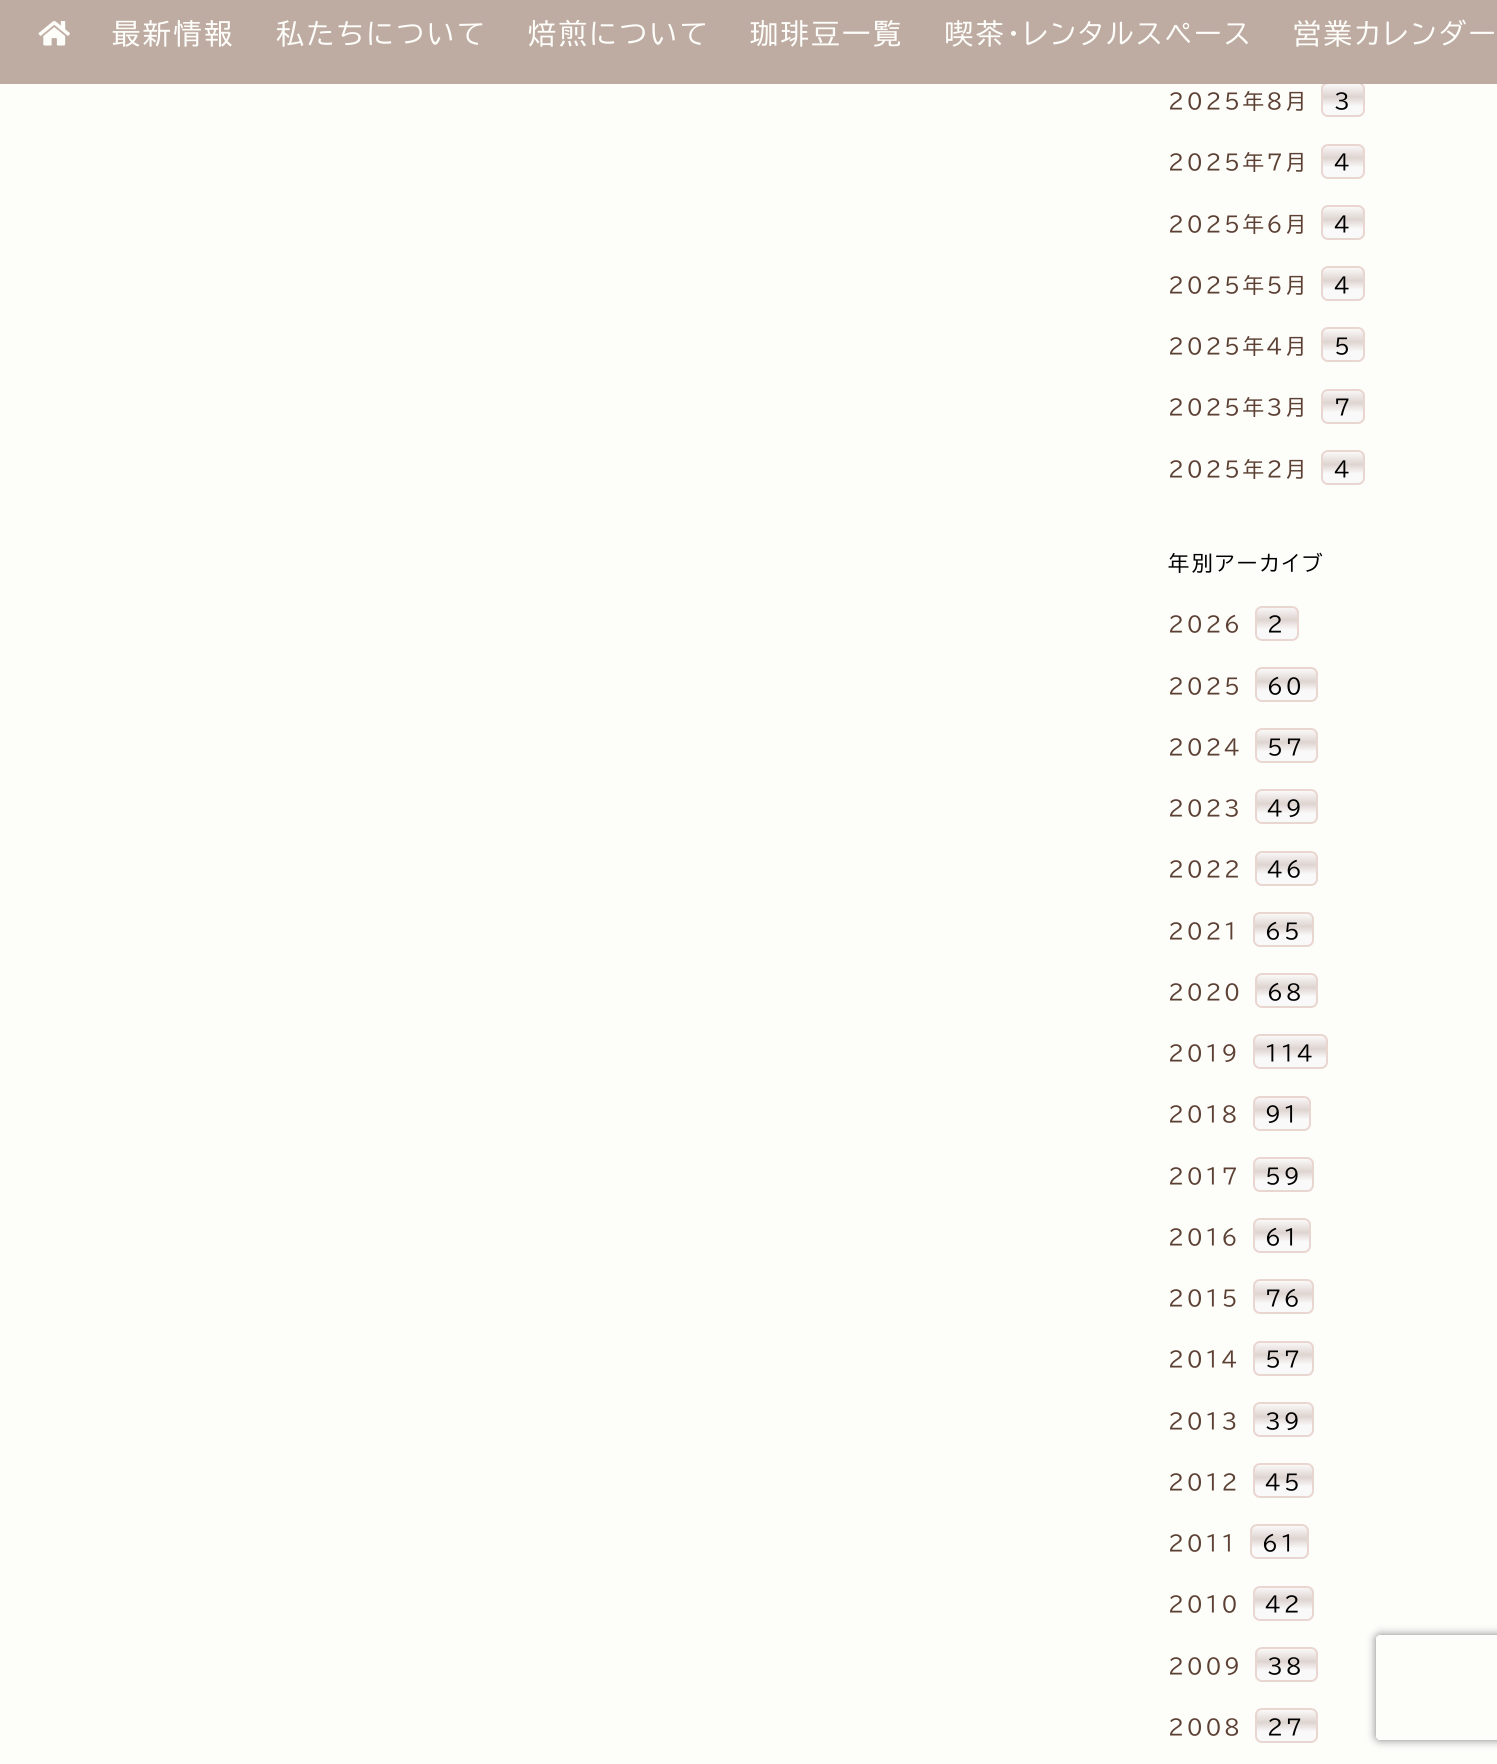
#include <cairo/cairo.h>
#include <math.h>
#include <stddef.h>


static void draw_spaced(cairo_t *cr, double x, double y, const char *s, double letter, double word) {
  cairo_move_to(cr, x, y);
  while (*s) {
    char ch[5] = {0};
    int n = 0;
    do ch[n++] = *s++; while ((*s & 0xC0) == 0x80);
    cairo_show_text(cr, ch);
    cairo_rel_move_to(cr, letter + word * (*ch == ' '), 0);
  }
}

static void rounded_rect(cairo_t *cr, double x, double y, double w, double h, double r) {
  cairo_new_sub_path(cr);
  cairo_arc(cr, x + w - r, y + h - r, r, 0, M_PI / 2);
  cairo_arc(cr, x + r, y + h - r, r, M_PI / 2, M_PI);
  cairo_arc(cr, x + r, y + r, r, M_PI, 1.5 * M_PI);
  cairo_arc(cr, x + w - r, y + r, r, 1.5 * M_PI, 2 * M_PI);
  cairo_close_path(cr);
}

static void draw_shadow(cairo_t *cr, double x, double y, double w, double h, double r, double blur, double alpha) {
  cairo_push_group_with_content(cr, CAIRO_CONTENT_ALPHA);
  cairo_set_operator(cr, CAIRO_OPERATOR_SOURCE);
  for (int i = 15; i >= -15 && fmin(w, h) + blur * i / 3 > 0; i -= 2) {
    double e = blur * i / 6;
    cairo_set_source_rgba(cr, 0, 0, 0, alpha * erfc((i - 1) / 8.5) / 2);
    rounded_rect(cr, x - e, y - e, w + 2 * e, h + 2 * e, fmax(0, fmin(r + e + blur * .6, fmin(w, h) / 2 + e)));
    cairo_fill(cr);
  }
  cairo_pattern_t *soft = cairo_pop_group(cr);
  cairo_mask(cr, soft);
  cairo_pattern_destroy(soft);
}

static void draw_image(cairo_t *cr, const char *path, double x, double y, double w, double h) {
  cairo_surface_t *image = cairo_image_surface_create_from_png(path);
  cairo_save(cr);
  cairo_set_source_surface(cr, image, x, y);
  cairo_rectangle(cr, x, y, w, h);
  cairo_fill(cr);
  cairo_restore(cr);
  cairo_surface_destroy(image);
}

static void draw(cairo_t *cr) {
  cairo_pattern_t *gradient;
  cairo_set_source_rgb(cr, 253 / 255.0, 253 / 255.0, 250 / 255.0);
  cairo_paint(cr);
  cairo_save(cr);
  rounded_rect(cr, 1321, 82, 44, 35, 7);
  cairo_clip(cr);
  gradient = cairo_pattern_create_linear(1343, 116, 1343, 84);
  cairo_pattern_add_color_stop_rgba(gradient, 0.3, 250 / 255.0, 249 / 255.0, 249 / 255.0, 1);
  cairo_pattern_add_color_stop_rgba(gradient, 0.6, 222 / 255.0, 212 / 255.0, 208 / 255.0, 1);
  cairo_pattern_add_color_stop_rgba(gradient, 1, 250 / 255.0, 249 / 255.0, 249 / 255.0, 1);
  cairo_set_source(cr, gradient);
  cairo_pattern_destroy(gradient);
  cairo_rectangle(cr, 1321, 84, 44, 32);
  cairo_fill(cr);
  cairo_restore(cr);
  rounded_rect(cr, 1322, 83, 42, 33, 6);
  cairo_set_source_rgb(cr, 234 / 255.0, 214 / 255.0, 208 / 255.0);
  cairo_stroke(cr);
  cairo_set_source_rgb(cr, 190 / 255.0, 171 / 255.0, 162 / 255.0);
  cairo_rectangle(cr, 0, 0, 1497, 84);
  cairo_fill(cr);
  draw_image(cr, "images/1.png", 38, 21, 32, 25);
  cairo_save(cr);
  rounded_rect(cr, 1321, 144, 44, 35, 7);
  cairo_clip(cr);
  gradient = cairo_pattern_create_linear(1343, 177, 1343, 145);
  cairo_pattern_add_color_stop_rgba(gradient, 0.3, 250 / 255.0, 249 / 255.0, 249 / 255.0, 1);
  cairo_pattern_add_color_stop_rgba(gradient, 0.6, 222 / 255.0, 212 / 255.0, 208 / 255.0, 1);
  cairo_pattern_add_color_stop_rgba(gradient, 1, 250 / 255.0, 249 / 255.0, 249 / 255.0, 1);
  cairo_set_source(cr, gradient);
  cairo_pattern_destroy(gradient);
  cairo_rectangle(cr, 1321, 145, 44, 32);
  cairo_fill(cr);
  cairo_restore(cr);
  rounded_rect(cr, 1322, 145, 42, 33, 6);
  cairo_set_source_rgb(cr, 234 / 255.0, 214 / 255.0, 208 / 255.0);
  cairo_stroke(cr);
  cairo_save(cr);
  rounded_rect(cr, 1321, 205, 44, 35, 7);
  cairo_clip(cr);
  gradient = cairo_pattern_create_linear(1343, 238, 1343, 207);
  cairo_pattern_add_color_stop_rgba(gradient, 0.3, 250 / 255.0, 249 / 255.0, 249 / 255.0, 1);
  cairo_pattern_add_color_stop_rgba(gradient, 0.6, 222 / 255.0, 212 / 255.0, 208 / 255.0, 1);
  cairo_pattern_add_color_stop_rgba(gradient, 1, 250 / 255.0, 249 / 255.0, 249 / 255.0, 1);
  cairo_set_source(cr, gradient);
  cairo_pattern_destroy(gradient);
  cairo_rectangle(cr, 1321, 207, 44, 31);
  cairo_fill(cr);
  cairo_restore(cr);
  rounded_rect(cr, 1322, 206, 42, 33, 6);
  cairo_stroke(cr);
  cairo_save(cr);
  rounded_rect(cr, 1321, 266, 44, 35, 7);
  cairo_clip(cr);
  gradient = cairo_pattern_create_linear(1343, 299, 1343, 268);
  cairo_pattern_add_color_stop_rgba(gradient, 0.3, 250 / 255.0, 249 / 255.0, 249 / 255.0, 1);
  cairo_pattern_add_color_stop_rgba(gradient, 0.6, 222 / 255.0, 212 / 255.0, 208 / 255.0, 1);
  cairo_pattern_add_color_stop_rgba(gradient, 1, 250 / 255.0, 249 / 255.0, 249 / 255.0, 1);
  cairo_set_source(cr, gradient);
  cairo_pattern_destroy(gradient);
  cairo_rectangle(cr, 1321, 268, 44, 31);
  cairo_fill(cr);
  cairo_restore(cr);
  rounded_rect(cr, 1322, 267, 42, 33, 6);
  cairo_stroke(cr);
  cairo_save(cr);
  rounded_rect(cr, 1321, 327, 44, 35, 7);
  cairo_clip(cr);
  gradient = cairo_pattern_create_linear(1343, 361, 1343, 329);
  cairo_pattern_add_color_stop_rgba(gradient, 0.3, 250 / 255.0, 249 / 255.0, 249 / 255.0, 1);
  cairo_pattern_add_color_stop_rgba(gradient, 0.6, 222 / 255.0, 212 / 255.0, 208 / 255.0, 1);
  cairo_pattern_add_color_stop_rgba(gradient, 1, 250 / 255.0, 249 / 255.0, 249 / 255.0, 1);
  cairo_set_source(cr, gradient);
  cairo_pattern_destroy(gradient);
  cairo_rectangle(cr, 1321, 329, 44, 32);
  cairo_fill(cr);
  cairo_restore(cr);
  rounded_rect(cr, 1322, 328, 42, 33, 6);
  cairo_stroke(cr);
  cairo_save(cr);
  rounded_rect(cr, 1321, 389, 44, 35, 7);
  cairo_clip(cr);
  gradient = cairo_pattern_create_linear(1343, 422, 1343, 390);
  cairo_pattern_add_color_stop_rgba(gradient, 0.3, 250 / 255.0, 249 / 255.0, 249 / 255.0, 1);
  cairo_pattern_add_color_stop_rgba(gradient, 0.6, 222 / 255.0, 212 / 255.0, 208 / 255.0, 1);
  cairo_pattern_add_color_stop_rgba(gradient, 1, 250 / 255.0, 249 / 255.0, 249 / 255.0, 1);
  cairo_set_source(cr, gradient);
  cairo_pattern_destroy(gradient);
  cairo_rectangle(cr, 1321, 390, 44, 32);
  cairo_fill(cr);
  cairo_restore(cr);
  rounded_rect(cr, 1322, 390, 42, 33, 6);
  cairo_stroke(cr);
  cairo_save(cr);
  rounded_rect(cr, 1321, 450, 44, 35, 7);
  cairo_clip(cr);
  gradient = cairo_pattern_create_linear(1343, 483, 1343, 452);
  cairo_pattern_add_color_stop_rgba(gradient, 0.3, 250 / 255.0, 249 / 255.0, 249 / 255.0, 1);
  cairo_pattern_add_color_stop_rgba(gradient, 0.6, 222 / 255.0, 212 / 255.0, 208 / 255.0, 1);
  cairo_pattern_add_color_stop_rgba(gradient, 1, 250 / 255.0, 249 / 255.0, 249 / 255.0, 1);
  cairo_set_source(cr, gradient);
  cairo_pattern_destroy(gradient);
  cairo_rectangle(cr, 1321, 452, 44, 31);
  cairo_fill(cr);
  cairo_restore(cr);
  rounded_rect(cr, 1322, 451, 42, 33, 6);
  cairo_stroke(cr);
  cairo_save(cr);
  rounded_rect(cr, 1255, 606, 44, 35, 7);
  cairo_clip(cr);
  gradient = cairo_pattern_create_linear(1277, 639, 1277, 607);
  cairo_pattern_add_color_stop_rgba(gradient, 0.3, 250 / 255.0, 249 / 255.0, 249 / 255.0, 1);
  cairo_pattern_add_color_stop_rgba(gradient, 0.6, 222 / 255.0, 212 / 255.0, 208 / 255.0, 1);
  cairo_pattern_add_color_stop_rgba(gradient, 1, 250 / 255.0, 249 / 255.0, 249 / 255.0, 1);
  cairo_set_source(cr, gradient);
  cairo_pattern_destroy(gradient);
  cairo_rectangle(cr, 1255, 607, 44, 32);
  cairo_fill(cr);
  cairo_restore(cr);
  rounded_rect(cr, 1256, 607, 42, 33, 6);
  cairo_stroke(cr);
  cairo_save(cr);
  rounded_rect(cr, 1255, 667, 63, 35, 7);
  cairo_clip(cr);
  gradient = cairo_pattern_create_linear(1286, 700, 1286, 669);
  cairo_pattern_add_color_stop_rgba(gradient, 0.3, 250 / 255.0, 249 / 255.0, 249 / 255.0, 1);
  cairo_pattern_add_color_stop_rgba(gradient, 0.6, 222 / 255.0, 212 / 255.0, 208 / 255.0, 1);
  cairo_pattern_add_color_stop_rgba(gradient, 1, 250 / 255.0, 249 / 255.0, 249 / 255.0, 1);
  cairo_set_source(cr, gradient);
  cairo_pattern_destroy(gradient);
  cairo_rectangle(cr, 1255, 669, 63, 31);
  cairo_fill(cr);
  cairo_restore(cr);
  rounded_rect(cr, 1256, 668, 61, 33, 6);
  cairo_stroke(cr);
  cairo_save(cr);
  rounded_rect(cr, 1255, 728, 63, 35, 7);
  cairo_clip(cr);
  gradient = cairo_pattern_create_linear(1286, 761, 1286, 730);
  cairo_pattern_add_color_stop_rgba(gradient, 0.3, 250 / 255.0, 249 / 255.0, 249 / 255.0, 1);
  cairo_pattern_add_color_stop_rgba(gradient, 0.6, 222 / 255.0, 212 / 255.0, 208 / 255.0, 1);
  cairo_pattern_add_color_stop_rgba(gradient, 1, 250 / 255.0, 249 / 255.0, 249 / 255.0, 1);
  cairo_set_source(cr, gradient);
  cairo_pattern_destroy(gradient);
  cairo_rectangle(cr, 1255, 730, 63, 31);
  cairo_fill(cr);
  cairo_restore(cr);
  rounded_rect(cr, 1256, 729, 61, 33, 6);
  cairo_stroke(cr);
  cairo_save(cr);
  rounded_rect(cr, 1255, 789, 63, 35, 7);
  cairo_clip(cr);
  gradient = cairo_pattern_create_linear(1286, 823, 1286, 791);
  cairo_pattern_add_color_stop_rgba(gradient, 0.3, 250 / 255.0, 249 / 255.0, 249 / 255.0, 1);
  cairo_pattern_add_color_stop_rgba(gradient, 0.6, 222 / 255.0, 212 / 255.0, 208 / 255.0, 1);
  cairo_pattern_add_color_stop_rgba(gradient, 1, 250 / 255.0, 249 / 255.0, 249 / 255.0, 1);
  cairo_set_source(cr, gradient);
  cairo_pattern_destroy(gradient);
  cairo_rectangle(cr, 1255, 791, 63, 32);
  cairo_fill(cr);
  cairo_restore(cr);
  rounded_rect(cr, 1256, 790, 61, 33, 6);
  cairo_stroke(cr);
  cairo_save(cr);
  rounded_rect(cr, 1255, 851, 63, 35, 7);
  cairo_clip(cr);
  gradient = cairo_pattern_create_linear(1286, 884, 1286, 852);
  cairo_pattern_add_color_stop_rgba(gradient, 0.3, 250 / 255.0, 249 / 255.0, 249 / 255.0, 1);
  cairo_pattern_add_color_stop_rgba(gradient, 0.6, 222 / 255.0, 212 / 255.0, 208 / 255.0, 1);
  cairo_pattern_add_color_stop_rgba(gradient, 1, 250 / 255.0, 249 / 255.0, 249 / 255.0, 1);
  cairo_set_source(cr, gradient);
  cairo_pattern_destroy(gradient);
  cairo_rectangle(cr, 1255, 852, 63, 32);
  cairo_fill(cr);
  cairo_restore(cr);
  rounded_rect(cr, 1256, 852, 61, 33, 6);
  cairo_stroke(cr);
  cairo_save(cr);
  rounded_rect(cr, 1253, 912, 61, 35, 7);
  cairo_clip(cr);
  gradient = cairo_pattern_create_linear(1284, 945, 1284, 914);
  cairo_pattern_add_color_stop_rgba(gradient, 0.3, 250 / 255.0, 249 / 255.0, 249 / 255.0, 1);
  cairo_pattern_add_color_stop_rgba(gradient, 0.6, 222 / 255.0, 212 / 255.0, 208 / 255.0, 1);
  cairo_pattern_add_color_stop_rgba(gradient, 1, 250 / 255.0, 249 / 255.0, 249 / 255.0, 1);
  cairo_set_source(cr, gradient);
  cairo_pattern_destroy(gradient);
  cairo_rectangle(cr, 1253, 914, 61, 31);
  cairo_fill(cr);
  cairo_restore(cr);
  rounded_rect(cr, 1254, 913, 59, 33, 6);
  cairo_stroke(cr);
  cairo_save(cr);
  rounded_rect(cr, 1255, 973, 63, 35, 7);
  cairo_clip(cr);
  gradient = cairo_pattern_create_linear(1286, 1006, 1286, 975);
  cairo_pattern_add_color_stop_rgba(gradient, 0.3, 250 / 255.0, 249 / 255.0, 249 / 255.0, 1);
  cairo_pattern_add_color_stop_rgba(gradient, 0.6, 222 / 255.0, 212 / 255.0, 208 / 255.0, 1);
  cairo_pattern_add_color_stop_rgba(gradient, 1, 250 / 255.0, 249 / 255.0, 249 / 255.0, 1);
  cairo_set_source(cr, gradient);
  cairo_pattern_destroy(gradient);
  cairo_rectangle(cr, 1255, 975, 63, 31);
  cairo_fill(cr);
  cairo_restore(cr);
  rounded_rect(cr, 1256, 974, 61, 33, 6);
  cairo_stroke(cr);
  cairo_save(cr);
  rounded_rect(cr, 1253, 1034, 75, 35, 7);
  cairo_clip(cr);
  gradient = cairo_pattern_create_linear(1291, 1068, 1291, 1036);
  cairo_pattern_add_color_stop_rgba(gradient, 0.3, 250 / 255.0, 249 / 255.0, 249 / 255.0, 1);
  cairo_pattern_add_color_stop_rgba(gradient, 0.6, 222 / 255.0, 212 / 255.0, 208 / 255.0, 1);
  cairo_pattern_add_color_stop_rgba(gradient, 1, 250 / 255.0, 249 / 255.0, 249 / 255.0, 1);
  cairo_set_source(cr, gradient);
  cairo_pattern_destroy(gradient);
  cairo_rectangle(cr, 1253, 1036, 75, 32);
  cairo_fill(cr);
  cairo_restore(cr);
  rounded_rect(cr, 1254, 1035, 73, 33, 6);
  cairo_stroke(cr);
  cairo_save(cr);
  rounded_rect(cr, 1253, 1096, 58, 35, 7);
  cairo_clip(cr);
  gradient = cairo_pattern_create_linear(1282, 1129, 1282, 1097);
  cairo_pattern_add_color_stop_rgba(gradient, 0.3, 250 / 255.0, 249 / 255.0, 249 / 255.0, 1);
  cairo_pattern_add_color_stop_rgba(gradient, 0.6, 222 / 255.0, 212 / 255.0, 208 / 255.0, 1);
  cairo_pattern_add_color_stop_rgba(gradient, 1, 250 / 255.0, 249 / 255.0, 249 / 255.0, 1);
  cairo_set_source(cr, gradient);
  cairo_pattern_destroy(gradient);
  cairo_rectangle(cr, 1253, 1097, 58, 32);
  cairo_fill(cr);
  cairo_restore(cr);
  rounded_rect(cr, 1254, 1097, 56, 33, 6);
  cairo_stroke(cr);
  cairo_save(cr);
  rounded_rect(cr, 1253, 1157, 61, 35, 7);
  cairo_clip(cr);
  gradient = cairo_pattern_create_linear(1284, 1190, 1284, 1159);
  cairo_pattern_add_color_stop_rgba(gradient, 0.3, 250 / 255.0, 249 / 255.0, 249 / 255.0, 1);
  cairo_pattern_add_color_stop_rgba(gradient, 0.6, 222 / 255.0, 212 / 255.0, 208 / 255.0, 1);
  cairo_pattern_add_color_stop_rgba(gradient, 1, 250 / 255.0, 249 / 255.0, 249 / 255.0, 1);
  cairo_set_source(cr, gradient);
  cairo_pattern_destroy(gradient);
  cairo_rectangle(cr, 1253, 1159, 61, 31);
  cairo_fill(cr);
  cairo_restore(cr);
  rounded_rect(cr, 1254, 1158, 59, 33, 6);
  cairo_stroke(cr);
  cairo_save(cr);
  rounded_rect(cr, 1253, 1218, 58, 35, 7);
  cairo_clip(cr);
  gradient = cairo_pattern_create_linear(1282, 1251, 1282, 1220);
  cairo_pattern_add_color_stop_rgba(gradient, 0.3, 250 / 255.0, 249 / 255.0, 249 / 255.0, 1);
  cairo_pattern_add_color_stop_rgba(gradient, 0.6, 222 / 255.0, 212 / 255.0, 208 / 255.0, 1);
  cairo_pattern_add_color_stop_rgba(gradient, 1, 250 / 255.0, 249 / 255.0, 249 / 255.0, 1);
  cairo_set_source(cr, gradient);
  cairo_pattern_destroy(gradient);
  cairo_rectangle(cr, 1253, 1220, 58, 31);
  cairo_fill(cr);
  cairo_restore(cr);
  rounded_rect(cr, 1254, 1219, 56, 33, 6);
  cairo_stroke(cr);
  cairo_save(cr);
  rounded_rect(cr, 1253, 1279, 61, 35, 7);
  cairo_clip(cr);
  gradient = cairo_pattern_create_linear(1284, 1313, 1284, 1281);
  cairo_pattern_add_color_stop_rgba(gradient, 0.3, 250 / 255.0, 249 / 255.0, 249 / 255.0, 1);
  cairo_pattern_add_color_stop_rgba(gradient, 0.6, 222 / 255.0, 212 / 255.0, 208 / 255.0, 1);
  cairo_pattern_add_color_stop_rgba(gradient, 1, 250 / 255.0, 249 / 255.0, 249 / 255.0, 1);
  cairo_set_source(cr, gradient);
  cairo_pattern_destroy(gradient);
  cairo_rectangle(cr, 1253, 1281, 61, 32);
  cairo_fill(cr);
  cairo_restore(cr);
  rounded_rect(cr, 1254, 1280, 59, 33, 6);
  cairo_stroke(cr);
  cairo_save(cr);
  rounded_rect(cr, 1253, 1341, 61, 35, 7);
  cairo_clip(cr);
  gradient = cairo_pattern_create_linear(1284, 1374, 1284, 1342);
  cairo_pattern_add_color_stop_rgba(gradient, 0.3, 250 / 255.0, 249 / 255.0, 249 / 255.0, 1);
  cairo_pattern_add_color_stop_rgba(gradient, 0.6, 222 / 255.0, 212 / 255.0, 208 / 255.0, 1);
  cairo_pattern_add_color_stop_rgba(gradient, 1, 250 / 255.0, 249 / 255.0, 249 / 255.0, 1);
  cairo_set_source(cr, gradient);
  cairo_pattern_destroy(gradient);
  cairo_rectangle(cr, 1253, 1342, 61, 32);
  cairo_fill(cr);
  cairo_restore(cr);
  rounded_rect(cr, 1254, 1342, 59, 33, 6);
  cairo_stroke(cr);
  cairo_save(cr);
  rounded_rect(cr, 1253, 1402, 61, 35, 7);
  cairo_clip(cr);
  gradient = cairo_pattern_create_linear(1284, 1435, 1284, 1404);
  cairo_pattern_add_color_stop_rgba(gradient, 0.3, 250 / 255.0, 249 / 255.0, 249 / 255.0, 1);
  cairo_pattern_add_color_stop_rgba(gradient, 0.6, 222 / 255.0, 212 / 255.0, 208 / 255.0, 1);
  cairo_pattern_add_color_stop_rgba(gradient, 1, 250 / 255.0, 249 / 255.0, 249 / 255.0, 1);
  cairo_set_source(cr, gradient);
  cairo_pattern_destroy(gradient);
  cairo_rectangle(cr, 1253, 1404, 61, 31);
  cairo_fill(cr);
  cairo_restore(cr);
  rounded_rect(cr, 1254, 1403, 59, 33, 6);
  cairo_stroke(cr);
  cairo_save(cr);
  rounded_rect(cr, 1253, 1463, 61, 35, 7);
  cairo_clip(cr);
  gradient = cairo_pattern_create_linear(1284, 1496, 1284, 1465);
  cairo_pattern_add_color_stop_rgba(gradient, 0.3, 250 / 255.0, 249 / 255.0, 249 / 255.0, 1);
  cairo_pattern_add_color_stop_rgba(gradient, 0.6, 222 / 255.0, 212 / 255.0, 208 / 255.0, 1);
  cairo_pattern_add_color_stop_rgba(gradient, 1, 250 / 255.0, 249 / 255.0, 249 / 255.0, 1);
  cairo_set_source(cr, gradient);
  cairo_pattern_destroy(gradient);
  cairo_rectangle(cr, 1253, 1465, 61, 31);
  cairo_fill(cr);
  cairo_restore(cr);
  rounded_rect(cr, 1254, 1464, 59, 33, 6);
  cairo_stroke(cr);
  cairo_save(cr);
  rounded_rect(cr, 1250, 1524, 59, 35, 7);
  cairo_clip(cr);
  gradient = cairo_pattern_create_linear(1279, 1558, 1279, 1526);
  cairo_pattern_add_color_stop_rgba(gradient, 0.3, 250 / 255.0, 249 / 255.0, 249 / 255.0, 1);
  cairo_pattern_add_color_stop_rgba(gradient, 0.6, 222 / 255.0, 212 / 255.0, 208 / 255.0, 1);
  cairo_pattern_add_color_stop_rgba(gradient, 1, 250 / 255.0, 249 / 255.0, 249 / 255.0, 1);
  cairo_set_source(cr, gradient);
  cairo_pattern_destroy(gradient);
  cairo_rectangle(cr, 1250, 1526, 59, 32);
  cairo_fill(cr);
  cairo_restore(cr);
  rounded_rect(cr, 1251, 1525, 57, 33, 6);
  cairo_stroke(cr);
  cairo_save(cr);
  rounded_rect(cr, 1253, 1586, 61, 35, 7);
  cairo_clip(cr);
  gradient = cairo_pattern_create_linear(1284, 1619, 1284, 1587);
  cairo_pattern_add_color_stop_rgba(gradient, 0.3, 250 / 255.0, 249 / 255.0, 249 / 255.0, 1);
  cairo_pattern_add_color_stop_rgba(gradient, 0.6, 222 / 255.0, 212 / 255.0, 208 / 255.0, 1);
  cairo_pattern_add_color_stop_rgba(gradient, 1, 250 / 255.0, 249 / 255.0, 249 / 255.0, 1);
  cairo_set_source(cr, gradient);
  cairo_pattern_destroy(gradient);
  cairo_rectangle(cr, 1253, 1587, 61, 32);
  cairo_fill(cr);
  cairo_restore(cr);
  rounded_rect(cr, 1254, 1587, 59, 33, 6);
  cairo_stroke(cr);
  cairo_save(cr);
  rounded_rect(cr, 1255, 1647, 63, 35, 7);
  cairo_clip(cr);
  gradient = cairo_pattern_create_linear(1286, 1680, 1286, 1649);
  cairo_pattern_add_color_stop_rgba(gradient, 0.3, 250 / 255.0, 249 / 255.0, 249 / 255.0, 1);
  cairo_pattern_add_color_stop_rgba(gradient, 0.6, 222 / 255.0, 212 / 255.0, 208 / 255.0, 1);
  cairo_pattern_add_color_stop_rgba(gradient, 1, 250 / 255.0, 249 / 255.0, 249 / 255.0, 1);
  cairo_set_source(cr, gradient);
  cairo_pattern_destroy(gradient);
  cairo_rectangle(cr, 1255, 1649, 63, 31);
  cairo_fill(cr);
  cairo_restore(cr);
  rounded_rect(cr, 1256, 1648, 61, 33, 6);
  cairo_stroke(cr);
  cairo_save(cr);
  rounded_rect(cr, 1255, 1708, 63, 35, 7);
  cairo_clip(cr);
  gradient = cairo_pattern_create_linear(1286, 1741, 1286, 1710);
  cairo_pattern_add_color_stop_rgba(gradient, 0.3, 250 / 255.0, 249 / 255.0, 249 / 255.0, 1);
  cairo_pattern_add_color_stop_rgba(gradient, 0.6, 222 / 255.0, 212 / 255.0, 208 / 255.0, 1);
  cairo_pattern_add_color_stop_rgba(gradient, 1, 250 / 255.0, 249 / 255.0, 249 / 255.0, 1);
  cairo_set_source(cr, gradient);
  cairo_pattern_destroy(gradient);
  cairo_rectangle(cr, 1255, 1710, 63, 31);
  cairo_fill(cr);
  cairo_restore(cr);
  rounded_rect(cr, 1256, 1709, 61, 33, 6);
  cairo_stroke(cr);
  cairo_save(cr);
  cairo_set_fill_rule(cr, CAIRO_FILL_RULE_EVEN_ODD);
  cairo_new_path(cr);
  cairo_move_to(cr, 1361, 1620);
  cairo_line_to(cr, 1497, 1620);
  cairo_line_to(cr, 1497, 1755);
  cairo_line_to(cr, 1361, 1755);
  cairo_close_path(cr);
  cairo_move_to(cr, 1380, 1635);
  cairo_line_to(cr, 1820, 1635);
  cairo_curve_to(cr, 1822, 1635, 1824, 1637, 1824, 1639);
  cairo_line_to(cr, 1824, 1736);
  cairo_curve_to(cr, 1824, 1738, 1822, 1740, 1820, 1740);
  cairo_line_to(cr, 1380, 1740);
  cairo_curve_to(cr, 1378, 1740, 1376, 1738, 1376, 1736);
  cairo_line_to(cr, 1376, 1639);
  cairo_curve_to(cr, 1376, 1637, 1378, 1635, 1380, 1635);
  cairo_close_path(cr);
  cairo_clip(cr);
  cairo_set_source_rgb(cr, 128 / 255.0, 128 / 255.0, 128 / 255.0);
  draw_shadow(cr, 1376, 1635, 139, 105, 4, 4.5, 1);
  cairo_restore(cr);
  cairo_select_font_face(cr, "BIZ UDPGothic", CAIRO_FONT_SLANT_NORMAL, CAIRO_FONT_WEIGHT_NORMAL);
  cairo_set_font_size(cr, 28);
  cairo_set_source_rgb(cr, 253 / 255.0, 253 / 255.0, 250 / 255.0);
  draw_spaced(cr, 112, 44, "最新情報", 2.75, 0);
  draw_spaced(cr, 276, 44, "私たちについて", 2.75, 0);
  draw_spaced(cr, 528, 44, "焙煎について", 2.75, 0);
  draw_spaced(cr, 750, 44, "珈琲豆一覧", 2.75, 0);
  draw_spaced(cr, 945, 44, "喫茶・レンタルスペース", 2.75, 0);
  draw_spaced(cr, 1293, 44, "営業カレンダー", 2.75, 0);
  cairo_set_font_size(cr, 21);
  cairo_set_source_rgb(cr, 92 / 255.0, 64 / 255.0, 51 / 255.0);
  draw_spaced(cr, 1168, 109, "2025年8月", 2.75, 0);
  cairo_set_source_rgb(cr, 0, 0, 0);
  draw_spaced(cr, 1334, 109, "3", 2.75, 0);
  cairo_set_source_rgb(cr, 92 / 255.0, 64 / 255.0, 51 / 255.0);
  draw_spaced(cr, 1168, 170, "2025年7月", 2.75, 0);
  cairo_set_source_rgb(cr, 0, 0, 0);
  draw_spaced(cr, 1334, 170, "4", 2.75, 0);
  cairo_set_source_rgb(cr, 92 / 255.0, 64 / 255.0, 51 / 255.0);
  draw_spaced(cr, 1168, 232, "2025年6月", 2.75, 0);
  cairo_set_source_rgb(cr, 0, 0, 0);
  draw_spaced(cr, 1334, 232, "4", 2.75, 0);
  cairo_set_source_rgb(cr, 92 / 255.0, 64 / 255.0, 51 / 255.0);
  draw_spaced(cr, 1168, 293, "2025年5月", 2.75, 0);
  cairo_set_source_rgb(cr, 0, 0, 0);
  draw_spaced(cr, 1334, 293, "4", 2.75, 0);
  cairo_set_source_rgb(cr, 92 / 255.0, 64 / 255.0, 51 / 255.0);
  draw_spaced(cr, 1168, 354, "2025年4月", 2.75, 0);
  cairo_set_source_rgb(cr, 0, 0, 0);
  draw_spaced(cr, 1334, 354, "5", 2.75, 0);
  cairo_set_source_rgb(cr, 92 / 255.0, 64 / 255.0, 51 / 255.0);
  draw_spaced(cr, 1168, 415, "2025年3月", 2.75, 0);
  cairo_set_source_rgb(cr, 0, 0, 0);
  draw_spaced(cr, 1334, 415, "7", 2.75, 0);
  cairo_set_source_rgb(cr, 92 / 255.0, 64 / 255.0, 51 / 255.0);
  draw_spaced(cr, 1168, 477, "2025年2月", 2.75, 0);
  cairo_set_source_rgb(cr, 0, 0, 0);
  draw_spaced(cr, 1334, 477, "4", 2.75, 0);
  draw_spaced(cr, 1168, 571, "年別アーカイブ", 2.75, 0);
  cairo_set_source_rgb(cr, 92 / 255.0, 64 / 255.0, 51 / 255.0);
  draw_spaced(cr, 1168, 632, "2026", 2.75, 0);
  cairo_set_source_rgb(cr, 0, 0, 0);
  draw_spaced(cr, 1267, 632, "2", 2.75, 0);
  cairo_set_source_rgb(cr, 92 / 255.0, 64 / 255.0, 51 / 255.0);
  draw_spaced(cr, 1168, 694, "2025", 2.75, 0);
  cairo_set_source_rgb(cr, 0, 0, 0);
  draw_spaced(cr, 1267, 694, "60", 2.75, 0);
  cairo_set_source_rgb(cr, 92 / 255.0, 64 / 255.0, 51 / 255.0);
  draw_spaced(cr, 1168, 755, "2024", 2.75, 0);
  cairo_set_source_rgb(cr, 0, 0, 0);
  draw_spaced(cr, 1267, 755, "57", 2.75, 0);
  cairo_set_source_rgb(cr, 92 / 255.0, 64 / 255.0, 51 / 255.0);
  draw_spaced(cr, 1168, 816, "2023", 2.75, 0);
  cairo_set_source_rgb(cr, 0, 0, 0);
  draw_spaced(cr, 1267, 816, "49", 2.75, 0);
  cairo_set_source_rgb(cr, 92 / 255.0, 64 / 255.0, 51 / 255.0);
  draw_spaced(cr, 1168, 877, "2022", 2.75, 0);
  cairo_set_source_rgb(cr, 0, 0, 0);
  draw_spaced(cr, 1267, 877, "46", 2.75, 0);
  cairo_set_source_rgb(cr, 92 / 255.0, 64 / 255.0, 51 / 255.0);
  draw_spaced(cr, 1168, 939, "2021", 2.75, 0);
  cairo_set_source_rgb(cr, 0, 0, 0);
  draw_spaced(cr, 1265, 939, "65", 2.75, 0);
  cairo_set_source_rgb(cr, 92 / 255.0, 64 / 255.0, 51 / 255.0);
  draw_spaced(cr, 1168, 1000, "2020", 2.75, 0);
  cairo_set_source_rgb(cr, 0, 0, 0);
  draw_spaced(cr, 1267, 1000, "68", 2.75, 0);
  cairo_set_source_rgb(cr, 92 / 255.0, 64 / 255.0, 51 / 255.0);
  draw_spaced(cr, 1168, 1061, "2019", 2.75, 0);
  cairo_set_source_rgb(cr, 0, 0, 0);
  draw_spaced(cr, 1265, 1061, "114", 2.75, 0);
  cairo_set_source_rgb(cr, 92 / 255.0, 64 / 255.0, 51 / 255.0);
  draw_spaced(cr, 1168, 1122, "2018", 2.75, 0);
  cairo_set_source_rgb(cr, 0, 0, 0);
  draw_spaced(cr, 1265, 1122, "91", 2.75, 0);
  cairo_set_source_rgb(cr, 92 / 255.0, 64 / 255.0, 51 / 255.0);
  draw_spaced(cr, 1168, 1184, "2017", 2.75, 0);
  cairo_set_source_rgb(cr, 0, 0, 0);
  draw_spaced(cr, 1265, 1184, "59", 2.75, 0);
  cairo_set_source_rgb(cr, 92 / 255.0, 64 / 255.0, 51 / 255.0);
  draw_spaced(cr, 1168, 1245, "2016", 2.75, 0);
  cairo_set_source_rgb(cr, 0, 0, 0);
  draw_spaced(cr, 1265, 1245, "61", 2.75, 0);
  cairo_set_source_rgb(cr, 92 / 255.0, 64 / 255.0, 51 / 255.0);
  draw_spaced(cr, 1168, 1306, "2015", 2.75, 0);
  cairo_set_source_rgb(cr, 0, 0, 0);
  draw_spaced(cr, 1265, 1306, "76", 2.75, 0);
  cairo_set_source_rgb(cr, 92 / 255.0, 64 / 255.0, 51 / 255.0);
  draw_spaced(cr, 1168, 1367, "2014", 2.75, 0);
  cairo_set_source_rgb(cr, 0, 0, 0);
  draw_spaced(cr, 1265, 1367, "57", 2.75, 0);
  cairo_set_source_rgb(cr, 92 / 255.0, 64 / 255.0, 51 / 255.0);
  draw_spaced(cr, 1168, 1429, "2013", 2.75, 0);
  cairo_set_source_rgb(cr, 0, 0, 0);
  draw_spaced(cr, 1265, 1429, "39", 2.75, 0);
  cairo_set_source_rgb(cr, 92 / 255.0, 64 / 255.0, 51 / 255.0);
  draw_spaced(cr, 1168, 1490, "2012", 2.75, 0);
  cairo_set_source_rgb(cr, 0, 0, 0);
  draw_spaced(cr, 1265, 1490, "45", 2.75, 0);
  cairo_set_source_rgb(cr, 92 / 255.0, 64 / 255.0, 51 / 255.0);
  draw_spaced(cr, 1168, 1551, "2011", 2.75, 0);
  cairo_set_source_rgb(cr, 0, 0, 0);
  draw_spaced(cr, 1262, 1551, "61", 2.75, 0);
  cairo_set_source_rgb(cr, 92 / 255.0, 64 / 255.0, 51 / 255.0);
  draw_spaced(cr, 1168, 1612, "2010", 2.75, 0);
  cairo_set_source_rgb(cr, 0, 0, 0);
  draw_spaced(cr, 1265, 1612, "42", 2.75, 0);
  cairo_set_source_rgb(cr, 92 / 255.0, 64 / 255.0, 51 / 255.0);
  draw_spaced(cr, 1168, 1674, "2009", 2.75, 0);
  cairo_set_source_rgb(cr, 0, 0, 0);
  draw_spaced(cr, 1267, 1674, "38", 2.75, 0);
  cairo_set_source_rgb(cr, 92 / 255.0, 64 / 255.0, 51 / 255.0);
  draw_spaced(cr, 1168, 1735, "2008", 2.75, 0);
  cairo_set_source_rgb(cr, 0, 0, 0);
  draw_spaced(cr, 1267, 1735, "27", 2.75, 0);
}

int main(void) {
  cairo_surface_t *surface = cairo_image_surface_create(CAIRO_FORMAT_RGB24, 1497, 1764);
  cairo_t *cr = cairo_create(surface);
  cairo_font_options_t *options = cairo_font_options_create();
  cairo_font_options_set_hint_metrics(options, CAIRO_HINT_METRICS_OFF);
  cairo_font_options_set_hint_style(options, CAIRO_HINT_STYLE_NONE);
  cairo_set_font_options(cr, options);
  cairo_set_miter_limit(cr, 4);
  draw(cr);
  cairo_surface_write_to_png(surface, "out.png");
  cairo_font_options_destroy(options);
  cairo_destroy(cr);
  cairo_surface_destroy(surface);
  return 0;
}
